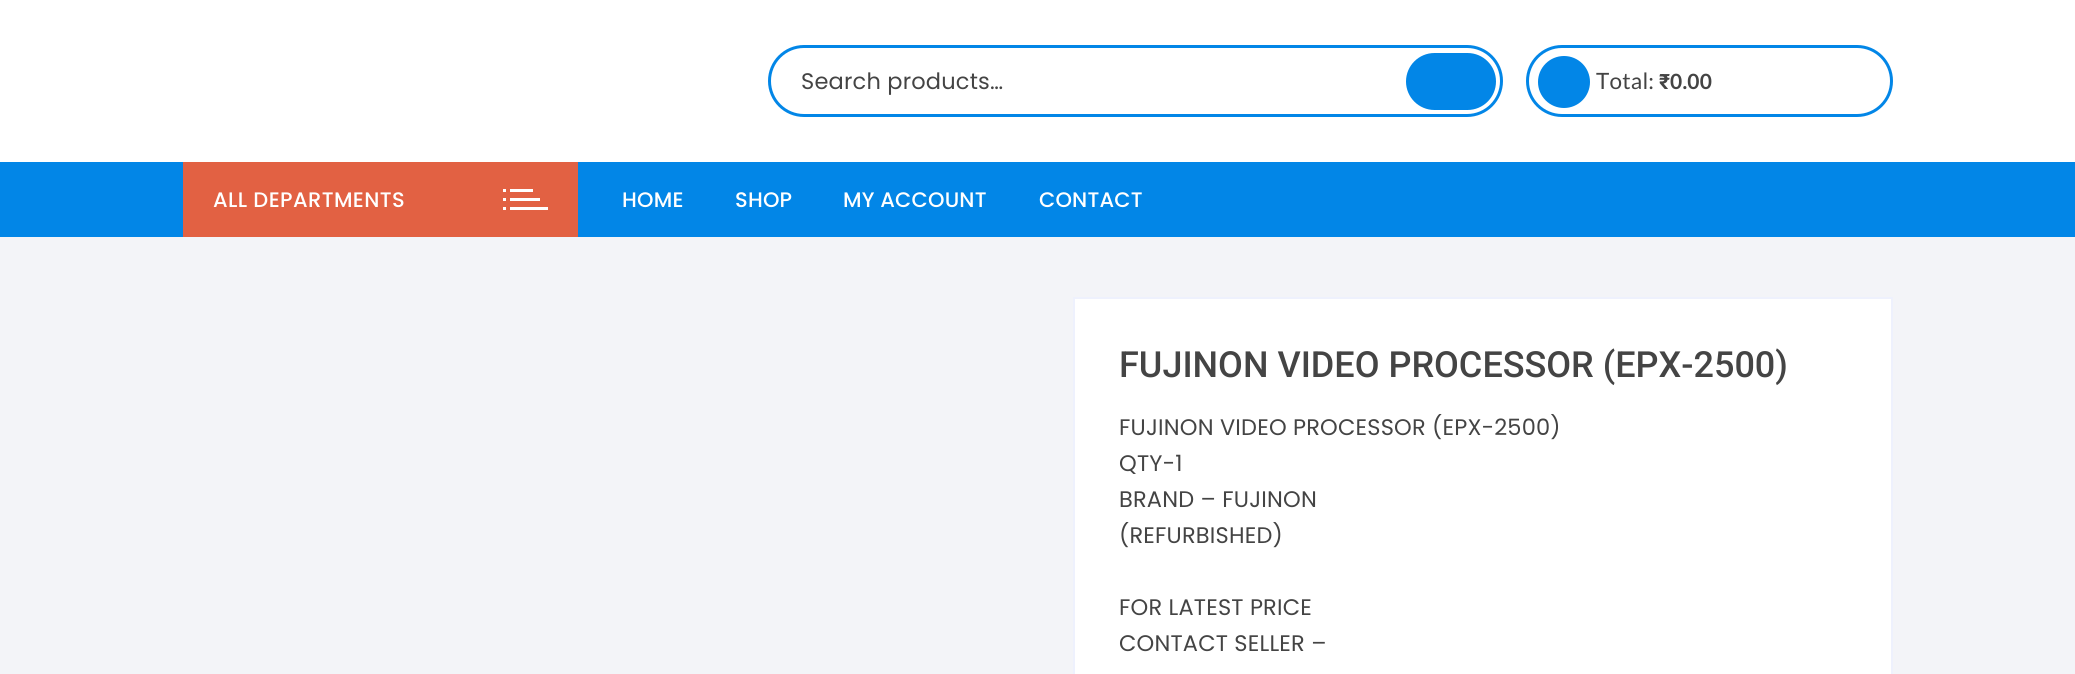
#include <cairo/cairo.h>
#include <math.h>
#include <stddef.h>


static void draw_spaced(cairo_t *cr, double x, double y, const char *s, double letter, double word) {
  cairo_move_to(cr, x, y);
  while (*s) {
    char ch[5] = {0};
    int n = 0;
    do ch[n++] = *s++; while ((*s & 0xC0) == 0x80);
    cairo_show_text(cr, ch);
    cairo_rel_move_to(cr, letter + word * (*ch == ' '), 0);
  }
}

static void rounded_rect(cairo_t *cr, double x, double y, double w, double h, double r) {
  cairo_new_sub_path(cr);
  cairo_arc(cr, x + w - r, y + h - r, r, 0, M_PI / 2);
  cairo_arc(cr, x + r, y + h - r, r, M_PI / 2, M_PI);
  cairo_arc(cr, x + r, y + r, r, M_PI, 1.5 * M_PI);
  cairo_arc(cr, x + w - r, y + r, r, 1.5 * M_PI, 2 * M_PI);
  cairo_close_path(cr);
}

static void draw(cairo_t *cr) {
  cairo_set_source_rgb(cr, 243 / 255.0, 244 / 255.0, 248 / 255.0);
  cairo_paint(cr);
  cairo_set_source_rgb(cr, 1, 1, 1);
  cairo_rectangle(cr, 0, 0, 2075, 162);
  cairo_fill(cr);
  rounded_rect(cr, 769.5, 46.5, 732, 69, 34.5);
  cairo_set_source_rgb(cr, 2 / 255.0, 134 / 255.0, 231 / 255.0);
  cairo_set_line_width(cr, 3);
  cairo_stroke(cr);
  rounded_rect(cr, 1406, 53, 90, 57, 28.5);
  cairo_fill(cr);
  rounded_rect(cr, 1527.5, 46.5, 364, 69, 34.5);
  cairo_stroke(cr);
  cairo_arc(cr, 1564, 82, 26, 0, 2 * M_PI);
  cairo_fill(cr);
  cairo_rectangle(cr, 0, 162, 2075, 75);
  cairo_fill(cr);
  cairo_set_source_rgb(cr, 226 / 255.0, 97 / 255.0, 67 / 255.0);
  cairo_rectangle(cr, 183, 162, 395, 75);
  cairo_fill(cr);
  cairo_set_source_rgb(cr, 1, 1, 1);
  cairo_rectangle(cr, 510, 189, 23, 3);
  cairo_fill(cr);
  cairo_rectangle(cr, 503, 189, 3, 3);
  cairo_fill(cr);
  cairo_rectangle(cr, 510, 198, 30, 3);
  cairo_fill(cr);
  cairo_rectangle(cr, 503, 198, 3, 3);
  cairo_fill(cr);
  cairo_rectangle(cr, 510, 207, 38, 3);
  cairo_fill(cr);
  cairo_rectangle(cr, 503, 207, 3, 3);
  cairo_fill(cr);
  cairo_rectangle(cr, 1074, 298, 818, 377);
  cairo_fill_preserve(cr);
  cairo_set_source_rgb(cr, 238 / 255.0, 241 / 255.0, 253 / 255.0);
  cairo_set_line_width(cr, 2);
  cairo_stroke(cr);
  cairo_select_font_face(cr, "Poppins", CAIRO_FONT_SLANT_NORMAL, CAIRO_FONT_WEIGHT_NORMAL);
  cairo_set_font_size(cr, 22.5);
  cairo_set_source_rgb(cr, 68 / 255.0, 68 / 255.0, 68 / 255.0);
  draw_spaced(cr, 801, 89, "Search products…", 0.2, 0);
  cairo_select_font_face(cr, "Lato", CAIRO_FONT_SLANT_NORMAL, CAIRO_FONT_WEIGHT_NORMAL);
  draw_spaced(cr, 1596, 89, "Total:", 0.2, 0);
  cairo_select_font_face(cr, "Roboto", CAIRO_FONT_SLANT_NORMAL, CAIRO_FONT_WEIGHT_BOLD);
  cairo_set_font_size(cr, 21);
  draw_spaced(cr, 1659, 89, "₹", 0.2, 0);
  cairo_select_font_face(cr, "Lato", CAIRO_FONT_SLANT_NORMAL, CAIRO_FONT_WEIGHT_BOLD);
  draw_spaced(cr, 1670, 89, "0.00", 0.2, 0);
  cairo_select_font_face(cr, "Poppins Medium", CAIRO_FONT_SLANT_NORMAL, CAIRO_FONT_WEIGHT_NORMAL);
  cairo_set_source_rgb(cr, 1, 1, 1);
  draw_spaced(cr, 213, 207, "ALL DEPARTMENTS", 0.4, 0);
  draw_spaced(cr, 622, 207, "HOME", 0.2, 0);
  draw_spaced(cr, 735, 207, "SHOP", 0.2, 0);
  draw_spaced(cr, 843, 207, "MY ACCOUNT", 0.2, 0);
  draw_spaced(cr, 1039, 207, "CONTACT", 0.2, 0);
  cairo_select_font_face(cr, "Roboto Medium", CAIRO_FONT_SLANT_NORMAL, CAIRO_FONT_WEIGHT_NORMAL);
  cairo_set_font_size(cr, 36);
  cairo_set_source_rgb(cr, 68 / 255.0, 68 / 255.0, 68 / 255.0);
  cairo_move_to(cr, 1119, 377);
  cairo_show_text(cr, "FUJINON VIDEO PROCESSOR (EPX-2500)");
  cairo_select_font_face(cr, "Poppins", CAIRO_FONT_SLANT_NORMAL, CAIRO_FONT_WEIGHT_NORMAL);
  cairo_set_font_size(cr, 22.5);
  draw_spaced(cr, 1119, 435, "FUJINON VIDEO PROCESSOR (EPX-2500)", 0.2, 0);
  draw_spaced(cr, 1119, 471, "QTY-1", 0.2, 0);
  draw_spaced(cr, 1119, 507, "BRAND – FUJINON", 0.2, 0);
  draw_spaced(cr, 1119, 543, "(REFURBISHED)", 0.2, 0);
  draw_spaced(cr, 1119, 615, "FOR LATEST PRICE", 0.2, 0);
  draw_spaced(cr, 1119, 651, "CONTACT SELLER –", 0.2, 0);
}

int main(void) {
  cairo_surface_t *surface = cairo_image_surface_create(CAIRO_FORMAT_RGB24, 2075, 674);
  cairo_t *cr = cairo_create(surface);
  cairo_font_options_t *options = cairo_font_options_create();
  cairo_font_options_set_hint_metrics(options, CAIRO_HINT_METRICS_OFF);
  cairo_font_options_set_hint_style(options, CAIRO_HINT_STYLE_NONE);
  cairo_set_font_options(cr, options);
  cairo_set_miter_limit(cr, 4);
  draw(cr);
  cairo_surface_write_to_png(surface, "out.png");
  cairo_font_options_destroy(options);
  cairo_destroy(cr);
  cairo_surface_destroy(surface);
  return 0;
}
